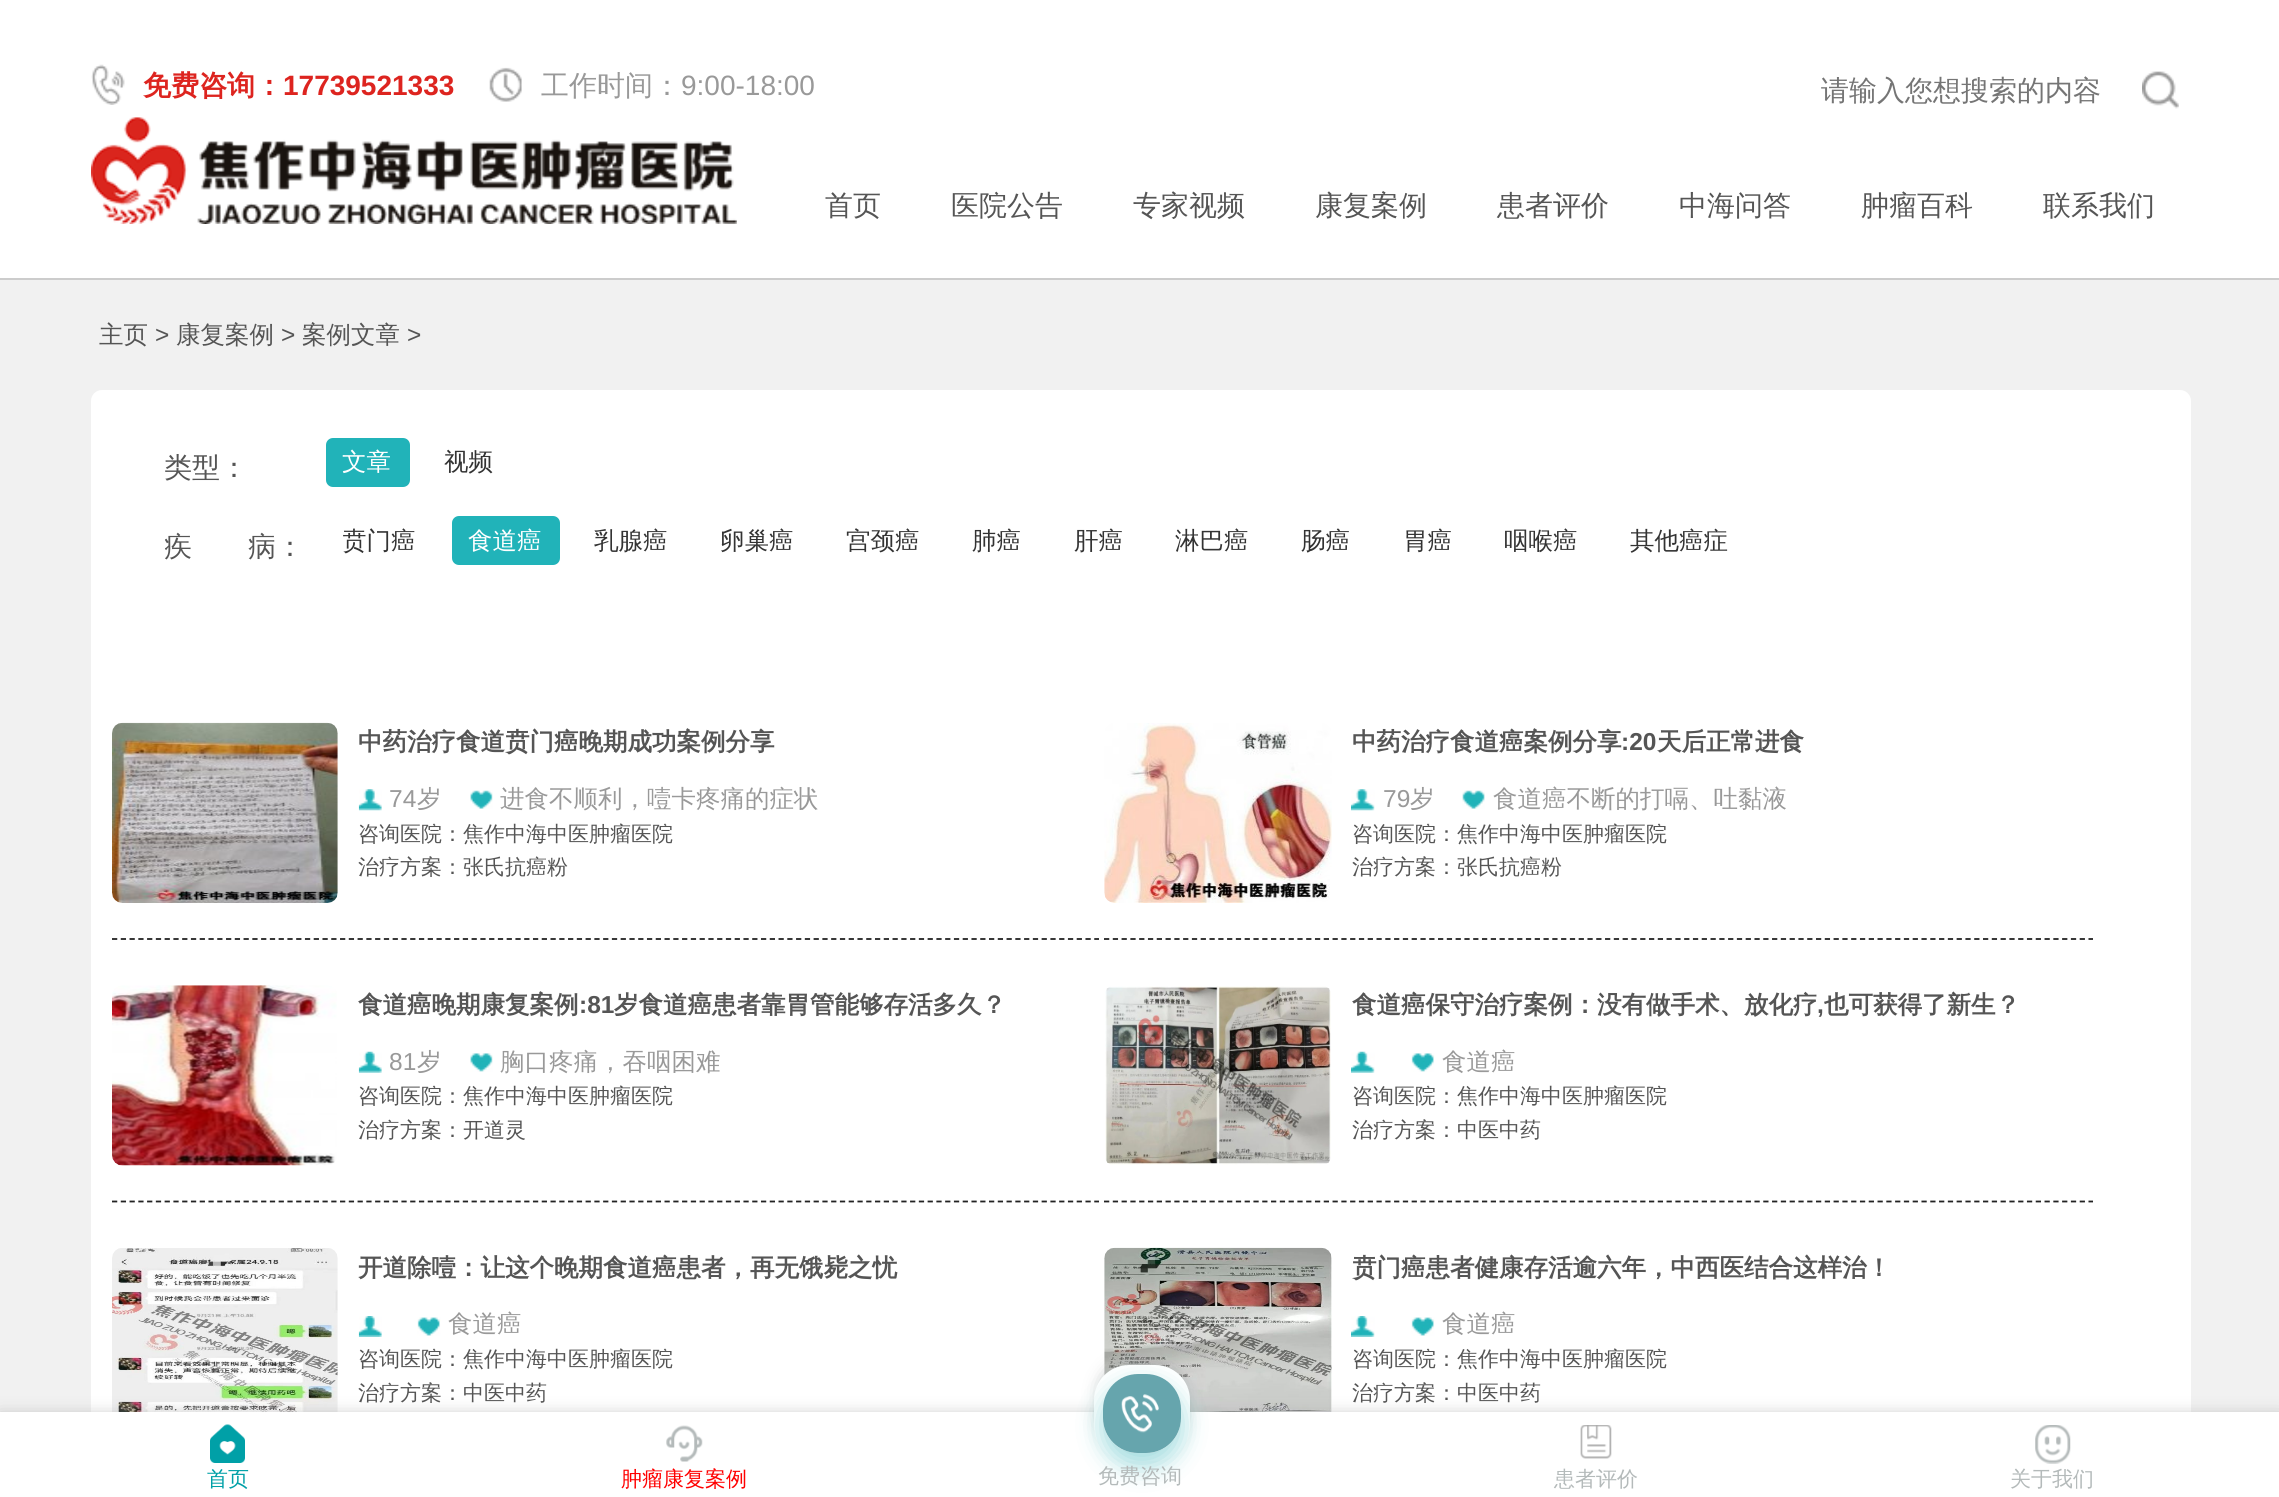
#include <cairo/cairo.h>
#include <math.h>
#include <stddef.h>


static void rounded_rect(cairo_t *cr, double x, double y, double w, double h, double r) {
  cairo_new_sub_path(cr);
  cairo_arc(cr, x + w - r, y + h - r, r, 0, M_PI / 2);
  cairo_arc(cr, x + r, y + h - r, r, M_PI / 2, M_PI);
  cairo_arc(cr, x + r, y + r, r, M_PI, 1.5 * M_PI);
  cairo_arc(cr, x + w - r, y + r, r, 1.5 * M_PI, 2 * M_PI);
  cairo_close_path(cr);
}

static void draw_shadow(cairo_t *cr, double x, double y, double w, double h, double r, double blur, double alpha) {
  cairo_push_group_with_content(cr, CAIRO_CONTENT_ALPHA);
  cairo_set_operator(cr, CAIRO_OPERATOR_SOURCE);
  for (int i = 15; i >= -15 && fmin(w, h) + blur * i / 3 > 0; i -= 2) {
    double e = blur * i / 6;
    cairo_set_source_rgba(cr, 0, 0, 0, alpha * erfc((i - 1) / 8.5) / 2);
    rounded_rect(cr, x - e, y - e, w + 2 * e, h + 2 * e, fmax(0, fmin(r + e + blur * .6, fmin(w, h) / 2 + e)));
    cairo_fill(cr);
  }
  cairo_pattern_t *soft = cairo_pop_group(cr);
  cairo_mask(cr, soft);
  cairo_pattern_destroy(soft);
}

static void draw_image(cairo_t *cr, const char *path, double x, double y, double w, double h) {
  cairo_surface_t *image = cairo_image_surface_create_from_png(path);
  cairo_save(cr);
  cairo_set_source_surface(cr, image, x, y);
  cairo_rectangle(cr, x, y, w, h);
  cairo_fill(cr);
  cairo_restore(cr);
  cairo_surface_destroy(image);
}

static void draw(cairo_t *cr) {
  cairo_set_source_rgb(cr, 241 / 255.0, 241 / 255.0, 241 / 255.0);
  cairo_paint(cr);
  cairo_set_source_rgb(cr, 1, 1, 1);
  cairo_rectangle(cr, 0, 0, 2279, 278);
  cairo_fill(cr);
  cairo_set_source_rgb(cr, 204 / 255.0, 204 / 255.0, 204 / 255.0);
  cairo_rectangle(cr, 0, 278, 2279, 2);
  cairo_fill(cr);
  draw_image(cr, "images/1.png", 91, 64, 34, 41);
  draw_image(cr, "images/2.png", 489, 67, 33, 35);
  draw_image(cr, "images/3.png", 2142, 71, 37, 38);
  draw_image(cr, "images/4.png", 91, 117, 646, 107);
  cairo_set_source_rgb(cr, 1, 1, 1);
  rounded_rect(cr, 91, 390, 2100, 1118, 11);
  cairo_fill(cr);
  cairo_set_source_rgb(cr, 33 / 255.0, 179 / 255.0, 185 / 255.0);
  rounded_rect(cr, 326, 438, 84, 49, 7);
  cairo_fill(cr);
  rounded_rect(cr, 452, 516, 108, 49, 7);
  cairo_fill(cr);
  cairo_new_path(cr);
  cairo_move_to(cr, 112, 939);
  cairo_line_to(cr, 1099, 939);
  cairo_set_source_rgb(cr, 34 / 255.0, 34 / 255.0, 34 / 255.0);
  cairo_set_line_width(cr, 1.8);
  cairo_set_dash(cr, (double[]){5.25, 3.52}, 2, 0);
  cairo_stroke(cr);
  draw_image(cr, "images/5.png", 112, 722, 226, 181);
  draw_image(cr, "images/6.png", 358, 789, 24, 22);
  draw_image(cr, "images/7.png", 470, 790, 23, 19);
  cairo_new_path(cr);
  cairo_move_to(cr, 1104, 939);
  cairo_line_to(cr, 2093, 939);
  cairo_set_dash(cr, (double[]){5.25, 3.54}, 2, 0);
  cairo_stroke(cr);
  draw_image(cr, "images/8.png", 1104, 723, 228, 180);
  draw_image(cr, "images/9.png", 1351, 789, 24, 22);
  draw_image(cr, "images/10.png", 1462, 790, 23, 19);
  cairo_new_path(cr);
  cairo_move_to(cr, 112, 1201.5);
  cairo_line_to(cr, 1099, 1201.5);
  cairo_set_dash(cr, (double[]){5.25, 3.52}, 2, 0);
  cairo_stroke(cr);
  draw_image(cr, "images/11.png", 112, 985, 225, 181);
  draw_image(cr, "images/12.png", 358, 1051, 24, 22);
  draw_image(cr, "images/13.png", 470, 1053, 23, 19);
  cairo_new_path(cr);
  cairo_move_to(cr, 1104, 1201.5);
  cairo_line_to(cr, 2093, 1201.5);
  cairo_set_dash(cr, (double[]){5.25, 3.54}, 2, 0);
  cairo_stroke(cr);
  draw_image(cr, "images/14.png", 1105, 986, 226, 179);
  draw_image(cr, "images/15.png", 1351, 1051, 24, 22);
  draw_image(cr, "images/16.png", 1411, 1053, 24, 19);
  draw_image(cr, "images/17.png", 112, 1248, 226, 164);
  draw_image(cr, "images/18.png", 358, 1316, 24, 21);
  draw_image(cr, "images/19.png", 417, 1317, 24, 19);
  draw_image(cr, "images/20.png", 1104, 1247, 228, 165);
  draw_image(cr, "images/21.png", 1351, 1316, 24, 21);
  draw_image(cr, "images/19.png", 1411, 1317, 24, 19);
  cairo_set_source_rgb(cr, 167 / 255.0, 167 / 255.0, 167 / 255.0);
  draw_shadow(cr, 0, 1418, 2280, 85, 0, 9, 1);
  cairo_set_source_rgb(cr, 1, 1, 1);
  cairo_rectangle(cr, 0, 1412, 2279, 85);
  cairo_fill(cr);
  draw_image(cr, "images/22.png", 210, 1424, 35, 39);
  draw_image(cr, "images/23.png", 666, 1425, 37, 37);
  cairo_set_source_rgb(cr, 167 / 255.0, 167 / 255.0, 167 / 255.0);
  draw_shadow(cr, 1103, 1365, 78, 79, 26, 9, 1);
  cairo_set_source_rgb(cr, 1, 1, 1);
  rounded_rect(cr, 1094, 1365, 96, 96, 35);
  cairo_fill(cr);
  cairo_save(cr);
  cairo_set_fill_rule(cr, CAIRO_FILL_RULE_EVEN_ODD);
  cairo_new_path(cr);
  cairo_move_to(cr, 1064, 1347);
  cairo_line_to(cr, 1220, 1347);
  cairo_line_to(cr, 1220, 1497);
  cairo_line_to(cr, 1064, 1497);
  cairo_close_path(cr);
  cairo_move_to(cr, 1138, 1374);
  cairo_line_to(cr, 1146, 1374);
  cairo_curve_to(cr, 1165.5, 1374, 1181, 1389.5, 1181, 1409);
  cairo_line_to(cr, 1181, 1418);
  cairo_curve_to(cr, 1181, 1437.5, 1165.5, 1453, 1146, 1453);
  cairo_line_to(cr, 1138, 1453);
  cairo_curve_to(cr, 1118.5, 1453, 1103, 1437.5, 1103, 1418);
  cairo_line_to(cr, 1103, 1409);
  cairo_curve_to(cr, 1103, 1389.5, 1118.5, 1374, 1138, 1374);
  cairo_close_path(cr);
  cairo_clip(cr);
  cairo_set_source_rgb(cr, 0, 160 / 255.0, 167 / 255.0);
  draw_shadow(cr, 1101, 1384, 82, 83, 37, 12, 0.35);
  cairo_restore(cr);
  cairo_set_source_rgb(cr, 102 / 255.0, 165 / 255.0, 173 / 255.0);
  rounded_rect(cr, 1103, 1374, 78, 79, 35);
  cairo_fill(cr);
  draw_image(cr, "images/24.png", 1121, 1394, 38, 39);
  draw_image(cr, "images/25.png", 1580, 1425, 32, 34);
  draw_image(cr, "images/26.png", 2035, 1425, 36, 39);
  cairo_select_font_face(cr, "WenQuanYi Zen Hei", CAIRO_FONT_SLANT_NORMAL, CAIRO_FONT_WEIGHT_BOLD);
  cairo_set_font_size(cr, 28);
  cairo_set_source_rgb(cr, 221 / 255.0, 36 / 255.0, 31 / 255.0);
  cairo_move_to(cr, 143, 95);
  cairo_show_text(cr, "免费咨询：");
  cairo_select_font_face(cr, "Liberation Sans", CAIRO_FONT_SLANT_NORMAL, CAIRO_FONT_WEIGHT_BOLD);
  cairo_move_to(cr, 283, 95);
  cairo_show_text(cr, "17739521333");
  cairo_select_font_face(cr, "WenQuanYi Zen Hei Medium", CAIRO_FONT_SLANT_NORMAL, CAIRO_FONT_WEIGHT_NORMAL);
  cairo_set_source_rgb(cr, 153 / 255.0, 153 / 255.0, 153 / 255.0);
  cairo_move_to(cr, 541, 95);
  cairo_show_text(cr, "工作时间：");
  cairo_select_font_face(cr, "Liberation Sans", CAIRO_FONT_SLANT_NORMAL, CAIRO_FONT_WEIGHT_NORMAL);
  cairo_move_to(cr, 681, 95);
  cairo_show_text(cr, "9:00-18:00");
  cairo_select_font_face(cr, "WenQuanYi Zen Hei Medium", CAIRO_FONT_SLANT_NORMAL, CAIRO_FONT_WEIGHT_NORMAL);
  cairo_set_source_rgb(cr, 117 / 255.0, 117 / 255.0, 117 / 255.0);
  cairo_move_to(cr, 1821, 100);
  cairo_show_text(cr, "请输入您想搜索的内容");
  cairo_set_source_rgb(cr, 85 / 255.0, 85 / 255.0, 85 / 255.0);
  cairo_move_to(cr, 825, 215);
  cairo_show_text(cr, "首页");
  cairo_move_to(cr, 951, 215);
  cairo_show_text(cr, "医院公告");
  cairo_move_to(cr, 1133, 215);
  cairo_show_text(cr, "专家视频");
  cairo_move_to(cr, 1315, 215);
  cairo_show_text(cr, "康复案例");
  cairo_move_to(cr, 1497, 215);
  cairo_show_text(cr, "患者评价");
  cairo_move_to(cr, 1679, 215);
  cairo_show_text(cr, "中海问答");
  cairo_move_to(cr, 1861, 215);
  cairo_show_text(cr, "肿瘤百科");
  cairo_move_to(cr, 2043, 215);
  cairo_show_text(cr, "联系我们");
  cairo_set_font_size(cr, 24.5);
  cairo_move_to(cr, 99, 343);
  cairo_show_text(cr, "主页");
  cairo_select_font_face(cr, "Liberation Sans", CAIRO_FONT_SLANT_NORMAL, CAIRO_FONT_WEIGHT_NORMAL);
  cairo_move_to(cr, 155, 343);
  cairo_show_text(cr, ">");
  cairo_select_font_face(cr, "WenQuanYi Zen Hei Medium", CAIRO_FONT_SLANT_NORMAL, CAIRO_FONT_WEIGHT_NORMAL);
  cairo_move_to(cr, 176, 343);
  cairo_show_text(cr, "康复案例");
  cairo_select_font_face(cr, "Liberation Sans", CAIRO_FONT_SLANT_NORMAL, CAIRO_FONT_WEIGHT_NORMAL);
  cairo_move_to(cr, 281, 343);
  cairo_show_text(cr, ">");
  cairo_select_font_face(cr, "WenQuanYi Zen Hei Medium", CAIRO_FONT_SLANT_NORMAL, CAIRO_FONT_WEIGHT_NORMAL);
  cairo_move_to(cr, 302, 343);
  cairo_show_text(cr, "案例文章");
  cairo_select_font_face(cr, "Liberation Sans", CAIRO_FONT_SLANT_NORMAL, CAIRO_FONT_WEIGHT_NORMAL);
  cairo_move_to(cr, 407, 343);
  cairo_show_text(cr, ">");
  cairo_select_font_face(cr, "WenQuanYi Zen Hei Medium", CAIRO_FONT_SLANT_NORMAL, CAIRO_FONT_WEIGHT_NORMAL);
  cairo_set_font_size(cr, 28);
  cairo_move_to(cr, 164, 477);
  cairo_show_text(cr, "类型：");
  cairo_set_font_size(cr, 24.5);
  cairo_set_source_rgb(cr, 1, 1, 1);
  cairo_move_to(cr, 342, 470);
  cairo_show_text(cr, "文章");
  cairo_set_source_rgb(cr, 51 / 255.0, 51 / 255.0, 51 / 255.0);
  cairo_move_to(cr, 444, 470);
  cairo_show_text(cr, "视频");
  cairo_save(cr);
  cairo_rectangle(cr, 165, 525, 140, 44);
  cairo_clip(cr);
  cairo_set_font_size(cr, 28);
  cairo_set_source_rgb(cr, 85 / 255.0, 85 / 255.0, 85 / 255.0);
  cairo_move_to(cr, 164, 556);
  cairo_show_text(cr, "疾　　病：");
  cairo_restore(cr);
  cairo_move_to(cr, 342, 549);
  cairo_show_text(cr, "贲门癌");
  cairo_set_source_rgb(cr, 1, 1, 1);
  cairo_move_to(cr, 468, 549);
  cairo_show_text(cr, "食道癌");
  cairo_set_source_rgb(cr, 51 / 255.0, 51 / 255.0, 51 / 255.0);
  cairo_move_to(cr, 594, 549);
  cairo_show_text(cr, "乳腺癌");
  cairo_move_to(cr, 720, 549);
  cairo_show_text(cr, "卵巢癌");
  cairo_move_to(cr, 846, 549);
  cairo_show_text(cr, "宫颈癌");
  cairo_move_to(cr, 972, 549);
  cairo_show_text(cr, "肺癌");
  cairo_move_to(cr, 1074, 549);
  cairo_show_text(cr, "肝癌");
  cairo_move_to(cr, 1175, 549);
  cairo_show_text(cr, "淋巴癌");
  cairo_move_to(cr, 1301, 549);
  cairo_show_text(cr, "肠癌");
  cairo_move_to(cr, 1403, 549);
  cairo_show_text(cr, "胃癌");
  cairo_move_to(cr, 1504, 549);
  cairo_show_text(cr, "咽喉癌");
  cairo_move_to(cr, 1630, 549);
  cairo_show_text(cr, "其他癌症");
  cairo_select_font_face(cr, "WenQuanYi Zen Hei", CAIRO_FONT_SLANT_NORMAL, CAIRO_FONT_WEIGHT_BOLD);
  cairo_set_source_rgb(cr, 85 / 255.0, 85 / 255.0, 85 / 255.0);
  cairo_move_to(cr, 358, 750);
  cairo_show_text(cr, "中药治疗食道贲门癌晚期成功案例分享");
  cairo_select_font_face(cr, "Liberation Sans", CAIRO_FONT_SLANT_NORMAL, CAIRO_FONT_WEIGHT_NORMAL);
  cairo_set_source_rgb(cr, 153 / 255.0, 153 / 255.0, 153 / 255.0);
  cairo_move_to(cr, 389, 807);
  cairo_show_text(cr, "74");
  cairo_select_font_face(cr, "WenQuanYi Zen Hei Medium", CAIRO_FONT_SLANT_NORMAL, CAIRO_FONT_WEIGHT_NORMAL);
  cairo_move_to(cr, 417, 807);
  cairo_show_text(cr, "岁");
  cairo_move_to(cr, 500, 807);
  cairo_show_text(cr, "进食不顺利，噎卡疼痛的症状");
  cairo_set_font_size(cr, 21);
  cairo_set_source_rgb(cr, 85 / 255.0, 85 / 255.0, 85 / 255.0);
  cairo_move_to(cr, 358, 841);
  cairo_show_text(cr, "咨询医院：焦作中海中医肿瘤医院");
  cairo_move_to(cr, 358, 874);
  cairo_show_text(cr, "治疗方案：张氏抗癌粉");
  cairo_select_font_face(cr, "WenQuanYi Zen Hei", CAIRO_FONT_SLANT_NORMAL, CAIRO_FONT_WEIGHT_BOLD);
  cairo_set_font_size(cr, 24.5);
  cairo_move_to(cr, 1352, 750);
  cairo_show_text(cr, "中药治疗食道癌案例分享");
  cairo_select_font_face(cr, "Liberation Sans", CAIRO_FONT_SLANT_NORMAL, CAIRO_FONT_WEIGHT_BOLD);
  cairo_move_to(cr, 1621, 750);
  cairo_show_text(cr, ":20");
  cairo_select_font_face(cr, "WenQuanYi Zen Hei", CAIRO_FONT_SLANT_NORMAL, CAIRO_FONT_WEIGHT_BOLD);
  cairo_move_to(cr, 1657, 750);
  cairo_show_text(cr, "天后正常进食");
  cairo_select_font_face(cr, "Liberation Sans", CAIRO_FONT_SLANT_NORMAL, CAIRO_FONT_WEIGHT_NORMAL);
  cairo_set_source_rgb(cr, 153 / 255.0, 153 / 255.0, 153 / 255.0);
  cairo_move_to(cr, 1383, 807);
  cairo_show_text(cr, "79");
  cairo_select_font_face(cr, "WenQuanYi Zen Hei Medium", CAIRO_FONT_SLANT_NORMAL, CAIRO_FONT_WEIGHT_NORMAL);
  cairo_move_to(cr, 1410, 807);
  cairo_show_text(cr, "岁");
  cairo_move_to(cr, 1493, 807);
  cairo_show_text(cr, "食道癌不断的打嗝、吐黏液");
  cairo_set_font_size(cr, 21);
  cairo_set_source_rgb(cr, 85 / 255.0, 85 / 255.0, 85 / 255.0);
  cairo_move_to(cr, 1352, 841);
  cairo_show_text(cr, "咨询医院：焦作中海中医肿瘤医院");
  cairo_move_to(cr, 1352, 874);
  cairo_show_text(cr, "治疗方案：张氏抗癌粉");
  cairo_select_font_face(cr, "WenQuanYi Zen Hei", CAIRO_FONT_SLANT_NORMAL, CAIRO_FONT_WEIGHT_BOLD);
  cairo_set_font_size(cr, 24.5);
  cairo_move_to(cr, 358, 1013);
  cairo_show_text(cr, "食道癌晚期康复案例");
  cairo_select_font_face(cr, "Liberation Sans", CAIRO_FONT_SLANT_NORMAL, CAIRO_FONT_WEIGHT_BOLD);
  cairo_move_to(cr, 579, 1013);
  cairo_show_text(cr, ":81");
  cairo_select_font_face(cr, "WenQuanYi Zen Hei", CAIRO_FONT_SLANT_NORMAL, CAIRO_FONT_WEIGHT_BOLD);
  cairo_move_to(cr, 614, 1013);
  cairo_show_text(cr, "岁食道癌患者靠胃管能够存活多久？");
  cairo_select_font_face(cr, "Liberation Sans", CAIRO_FONT_SLANT_NORMAL, CAIRO_FONT_WEIGHT_NORMAL);
  cairo_set_source_rgb(cr, 153 / 255.0, 153 / 255.0, 153 / 255.0);
  cairo_move_to(cr, 389, 1070);
  cairo_show_text(cr, "81");
  cairo_select_font_face(cr, "WenQuanYi Zen Hei Medium", CAIRO_FONT_SLANT_NORMAL, CAIRO_FONT_WEIGHT_NORMAL);
  cairo_move_to(cr, 417, 1070);
  cairo_show_text(cr, "岁");
  cairo_move_to(cr, 500, 1070);
  cairo_show_text(cr, "胸口疼痛，吞咽困难");
  cairo_set_font_size(cr, 21);
  cairo_set_source_rgb(cr, 85 / 255.0, 85 / 255.0, 85 / 255.0);
  cairo_move_to(cr, 358, 1103);
  cairo_show_text(cr, "咨询医院：焦作中海中医肿瘤医院");
  cairo_move_to(cr, 358, 1137);
  cairo_show_text(cr, "治疗方案：开道灵");
  cairo_select_font_face(cr, "WenQuanYi Zen Hei", CAIRO_FONT_SLANT_NORMAL, CAIRO_FONT_WEIGHT_BOLD);
  cairo_set_font_size(cr, 24.5);
  cairo_move_to(cr, 1352, 1013);
  cairo_show_text(cr, "食道癌保守治疗案例：没有做手术、放化疗");
  cairo_select_font_face(cr, "Liberation Sans", CAIRO_FONT_SLANT_NORMAL, CAIRO_FONT_WEIGHT_BOLD);
  cairo_move_to(cr, 1817, 1013);
  cairo_show_text(cr, ",");
  cairo_select_font_face(cr, "WenQuanYi Zen Hei", CAIRO_FONT_SLANT_NORMAL, CAIRO_FONT_WEIGHT_BOLD);
  cairo_move_to(cr, 1824, 1013);
  cairo_show_text(cr, "也可获得了新生？");
  cairo_select_font_face(cr, "WenQuanYi Zen Hei Medium", CAIRO_FONT_SLANT_NORMAL, CAIRO_FONT_WEIGHT_NORMAL);
  cairo_set_source_rgb(cr, 153 / 255.0, 153 / 255.0, 153 / 255.0);
  cairo_move_to(cr, 1442, 1070);
  cairo_show_text(cr, "食道癌");
  cairo_set_font_size(cr, 21);
  cairo_set_source_rgb(cr, 85 / 255.0, 85 / 255.0, 85 / 255.0);
  cairo_move_to(cr, 1352, 1103);
  cairo_show_text(cr, "咨询医院：焦作中海中医肿瘤医院");
  cairo_move_to(cr, 1352, 1137);
  cairo_show_text(cr, "治疗方案：中医中药");
  cairo_select_font_face(cr, "WenQuanYi Zen Hei", CAIRO_FONT_SLANT_NORMAL, CAIRO_FONT_WEIGHT_BOLD);
  cairo_set_font_size(cr, 24.5);
  cairo_move_to(cr, 358, 1276);
  cairo_show_text(cr, "开道除噎：让这个晚期食道癌患者，再无饿毙之忧");
  cairo_select_font_face(cr, "WenQuanYi Zen Hei Medium", CAIRO_FONT_SLANT_NORMAL, CAIRO_FONT_WEIGHT_NORMAL);
  cairo_set_source_rgb(cr, 153 / 255.0, 153 / 255.0, 153 / 255.0);
  cairo_move_to(cr, 448, 1332);
  cairo_show_text(cr, "食道癌");
  cairo_set_font_size(cr, 21);
  cairo_set_source_rgb(cr, 85 / 255.0, 85 / 255.0, 85 / 255.0);
  cairo_move_to(cr, 358, 1366);
  cairo_show_text(cr, "咨询医院：焦作中海中医肿瘤医院");
  cairo_move_to(cr, 358, 1400);
  cairo_show_text(cr, "治疗方案：中医中药");
  cairo_select_font_face(cr, "WenQuanYi Zen Hei", CAIRO_FONT_SLANT_NORMAL, CAIRO_FONT_WEIGHT_BOLD);
  cairo_set_font_size(cr, 24.5);
  cairo_move_to(cr, 1352, 1276);
  cairo_show_text(cr, "贲门癌患者健康存活逾六年，中西医结合这样治！");
  cairo_select_font_face(cr, "WenQuanYi Zen Hei Medium", CAIRO_FONT_SLANT_NORMAL, CAIRO_FONT_WEIGHT_NORMAL);
  cairo_set_source_rgb(cr, 153 / 255.0, 153 / 255.0, 153 / 255.0);
  cairo_move_to(cr, 1442, 1332);
  cairo_show_text(cr, "食道癌");
  cairo_set_font_size(cr, 21);
  cairo_set_source_rgb(cr, 85 / 255.0, 85 / 255.0, 85 / 255.0);
  cairo_move_to(cr, 1352, 1366);
  cairo_show_text(cr, "咨询医院：焦作中海中医肿瘤医院");
  cairo_move_to(cr, 1352, 1400);
  cairo_show_text(cr, "治疗方案：中医中药");
  cairo_set_source_rgb(cr, 0, 160 / 255.0, 167 / 255.0);
  cairo_move_to(cr, 207, 1486);
  cairo_show_text(cr, "首页");
  cairo_set_source_rgb(cr, 1, 0, 0);
  cairo_move_to(cr, 621, 1486);
  cairo_show_text(cr, "肿瘤康复案例");
  cairo_set_source_rgb(cr, 180 / 255.0, 186 / 255.0, 186 / 255.0);
  cairo_move_to(cr, 1098, 1483);
  cairo_show_text(cr, "免费咨询");
  cairo_move_to(cr, 1554, 1486);
  cairo_show_text(cr, "患者评价");
  cairo_move_to(cr, 2010, 1486);
  cairo_show_text(cr, "关于我们");
}

int main(void) {
  cairo_surface_t *surface = cairo_image_surface_create(CAIRO_FORMAT_RGB24, 2279, 1497);
  cairo_t *cr = cairo_create(surface);
  cairo_font_options_t *options = cairo_font_options_create();
  cairo_font_options_set_hint_metrics(options, CAIRO_HINT_METRICS_OFF);
  cairo_font_options_set_hint_style(options, CAIRO_HINT_STYLE_NONE);
  cairo_set_font_options(cr, options);
  cairo_set_miter_limit(cr, 4);
  draw(cr);
  cairo_surface_write_to_png(surface, "out.png");
  cairo_font_options_destroy(options);
  cairo_destroy(cr);
  cairo_surface_destroy(surface);
  return 0;
}
